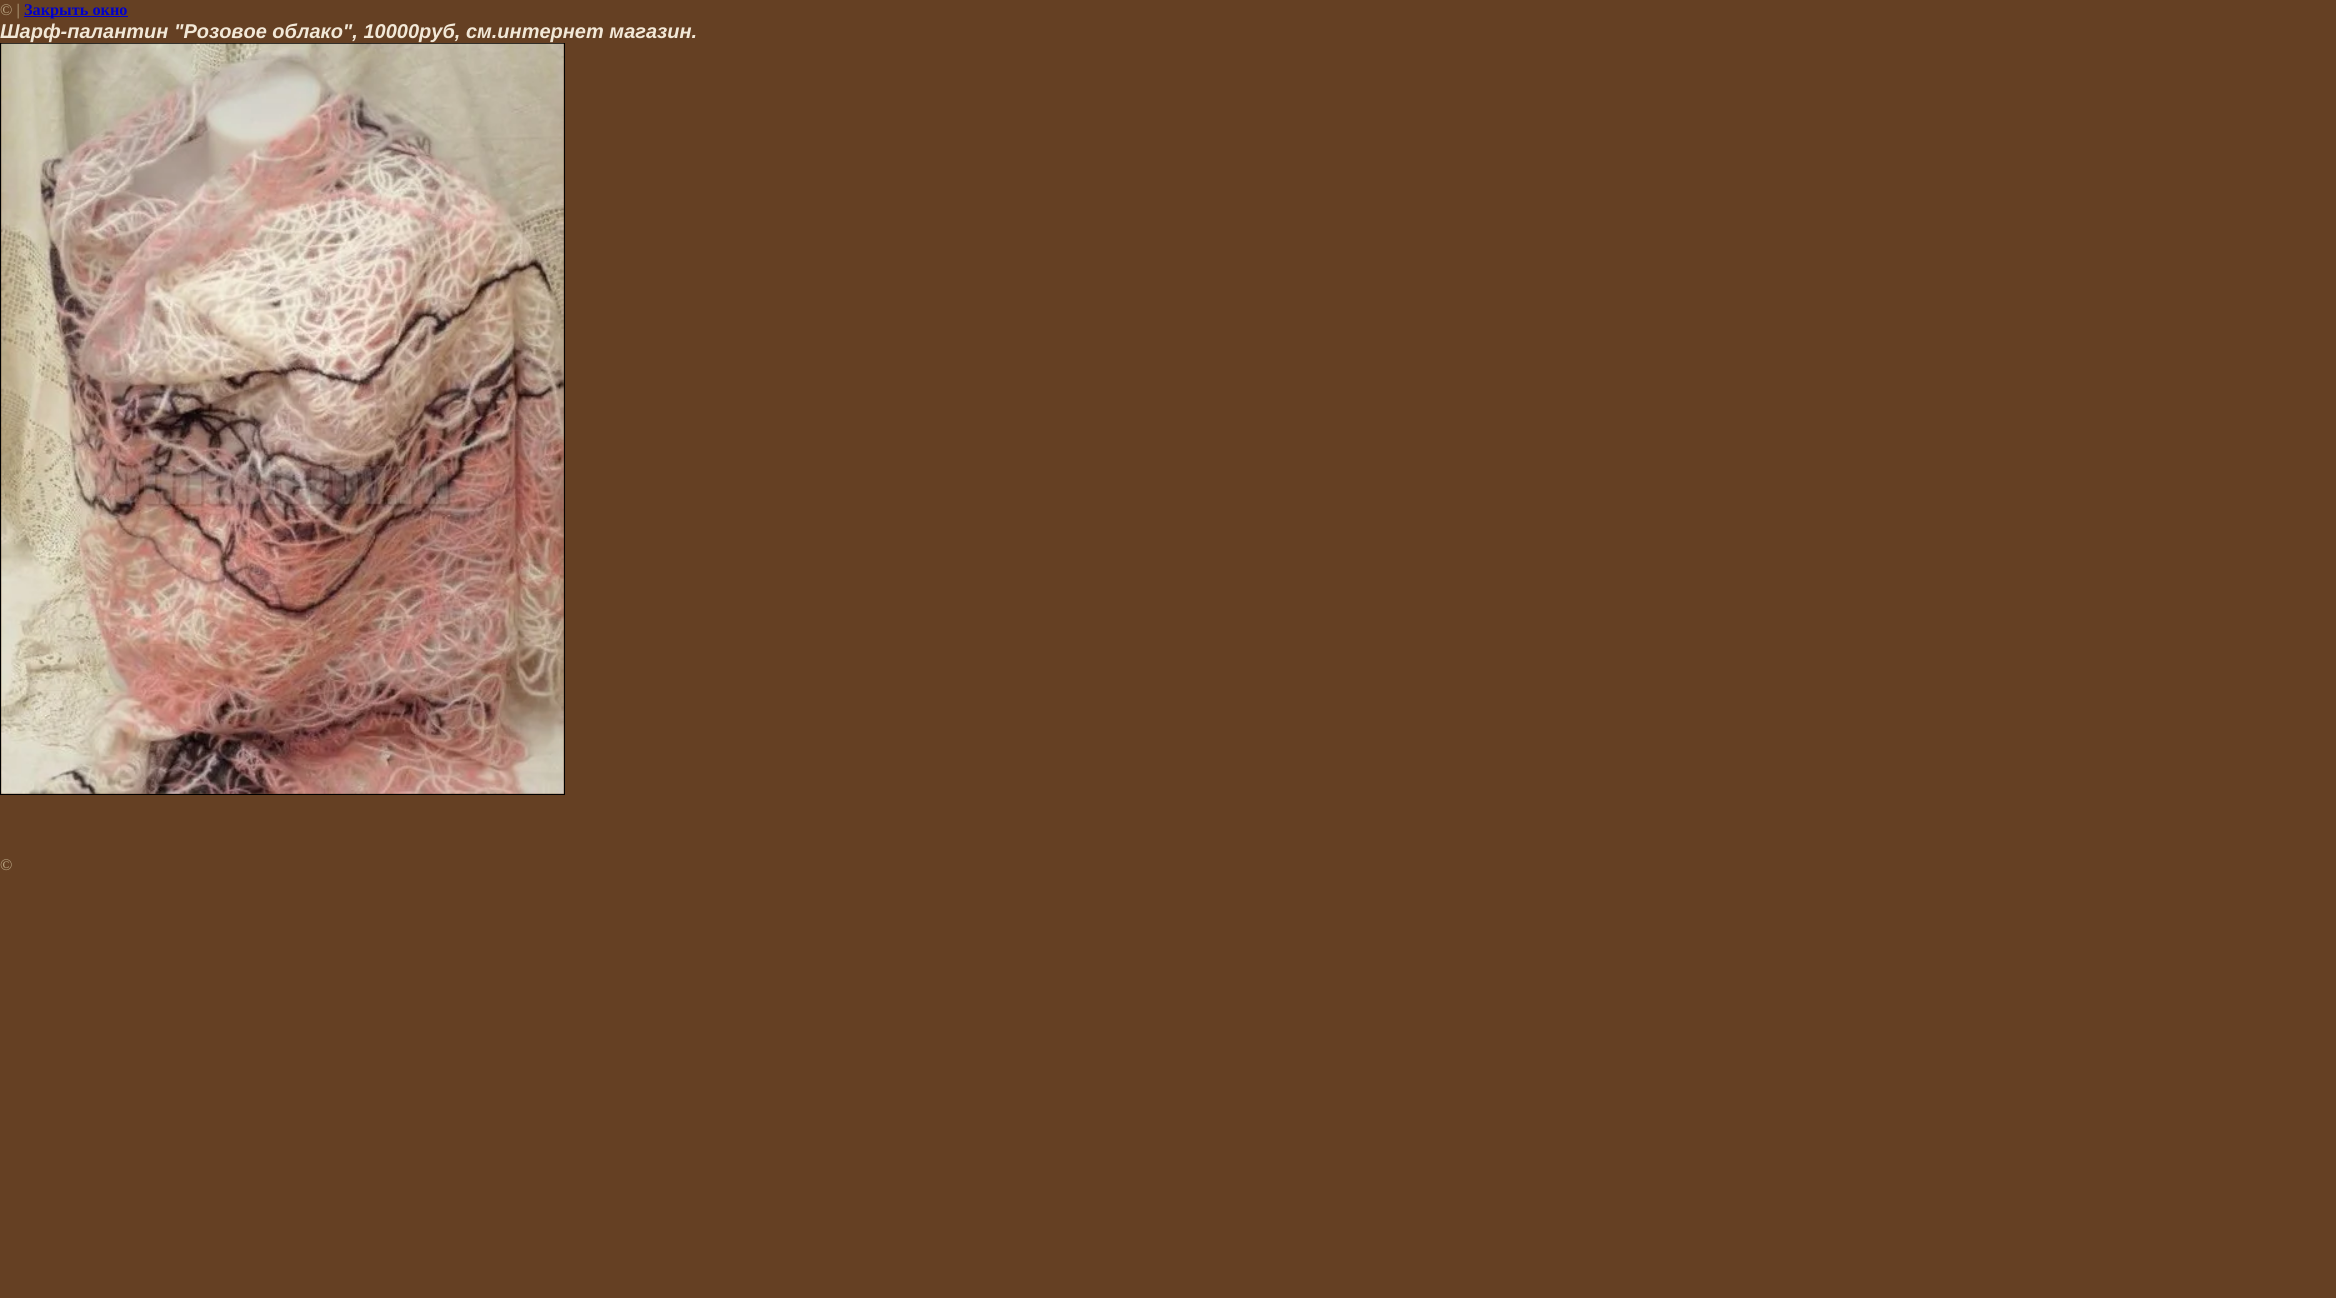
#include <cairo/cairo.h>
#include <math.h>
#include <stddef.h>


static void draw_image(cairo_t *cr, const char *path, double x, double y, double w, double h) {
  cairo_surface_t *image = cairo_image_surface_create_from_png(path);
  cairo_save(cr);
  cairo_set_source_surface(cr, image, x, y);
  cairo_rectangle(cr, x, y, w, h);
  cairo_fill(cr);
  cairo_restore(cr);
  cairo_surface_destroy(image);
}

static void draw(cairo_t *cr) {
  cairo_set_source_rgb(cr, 101 / 255.0, 64 / 255.0, 35 / 255.0);
  cairo_paint(cr);
  cairo_set_source_rgb(cr, 0, 0, 204 / 255.0);
  cairo_rectangle(cr, 24, 16, 104, 1);
  cairo_fill(cr);
  cairo_rectangle(cr, 0.5, 43.5, 564, 751);
  cairo_set_source_rgb(cr, 0, 0, 0);
  cairo_set_line_width(cr, 1);
  cairo_stroke(cr);
  draw_image(cr, "images/1.png", 1, 43, 563, 751);
  cairo_select_font_face(cr, "Liberation Serif", CAIRO_FONT_SLANT_NORMAL, CAIRO_FONT_WEIGHT_NORMAL);
  cairo_set_font_size(cr, 16.25);
  cairo_set_source_rgb(cr, 188 / 255.0, 168 / 255.0, 134 / 255.0);
  cairo_move_to(cr, 0, 15);
  cairo_show_text(cr, "© |");
  cairo_select_font_face(cr, "Liberation Serif", CAIRO_FONT_SLANT_NORMAL, CAIRO_FONT_WEIGHT_BOLD);
  cairo_set_source_rgb(cr, 0, 0, 204 / 255.0);
  cairo_move_to(cr, 24, 15);
  cairo_show_text(cr, "Закрыть окно");
  cairo_select_font_face(cr, "Liberation Sans", CAIRO_FONT_SLANT_ITALIC, CAIRO_FONT_WEIGHT_BOLD);
  cairo_set_font_size(cr, 20);
  cairo_set_source_rgb(cr, 242 / 255.0, 232 / 255.0, 215 / 255.0);
  cairo_move_to(cr, 0, 38);
  cairo_show_text(cr, "Шарф-палантин \"Розовое облако\", 10000руб, см.интернет магазин.");
  cairo_select_font_face(cr, "Liberation Serif", CAIRO_FONT_SLANT_NORMAL, CAIRO_FONT_WEIGHT_NORMAL);
  cairo_set_font_size(cr, 16.25);
  cairo_set_source_rgb(cr, 188 / 255.0, 168 / 255.0, 134 / 255.0);
  cairo_move_to(cr, 0, 870);
  cairo_show_text(cr, "©");
}

int main(void) {
  cairo_surface_t *surface = cairo_image_surface_create(CAIRO_FORMAT_RGB24, 2336, 1298);
  cairo_t *cr = cairo_create(surface);
  cairo_font_options_t *options = cairo_font_options_create();
  cairo_font_options_set_hint_metrics(options, CAIRO_HINT_METRICS_OFF);
  cairo_font_options_set_hint_style(options, CAIRO_HINT_STYLE_NONE);
  cairo_set_font_options(cr, options);
  cairo_set_miter_limit(cr, 4);
  draw(cr);
  cairo_surface_write_to_png(surface, "out.png");
  cairo_font_options_destroy(options);
  cairo_destroy(cr);
  cairo_surface_destroy(surface);
  return 0;
}
